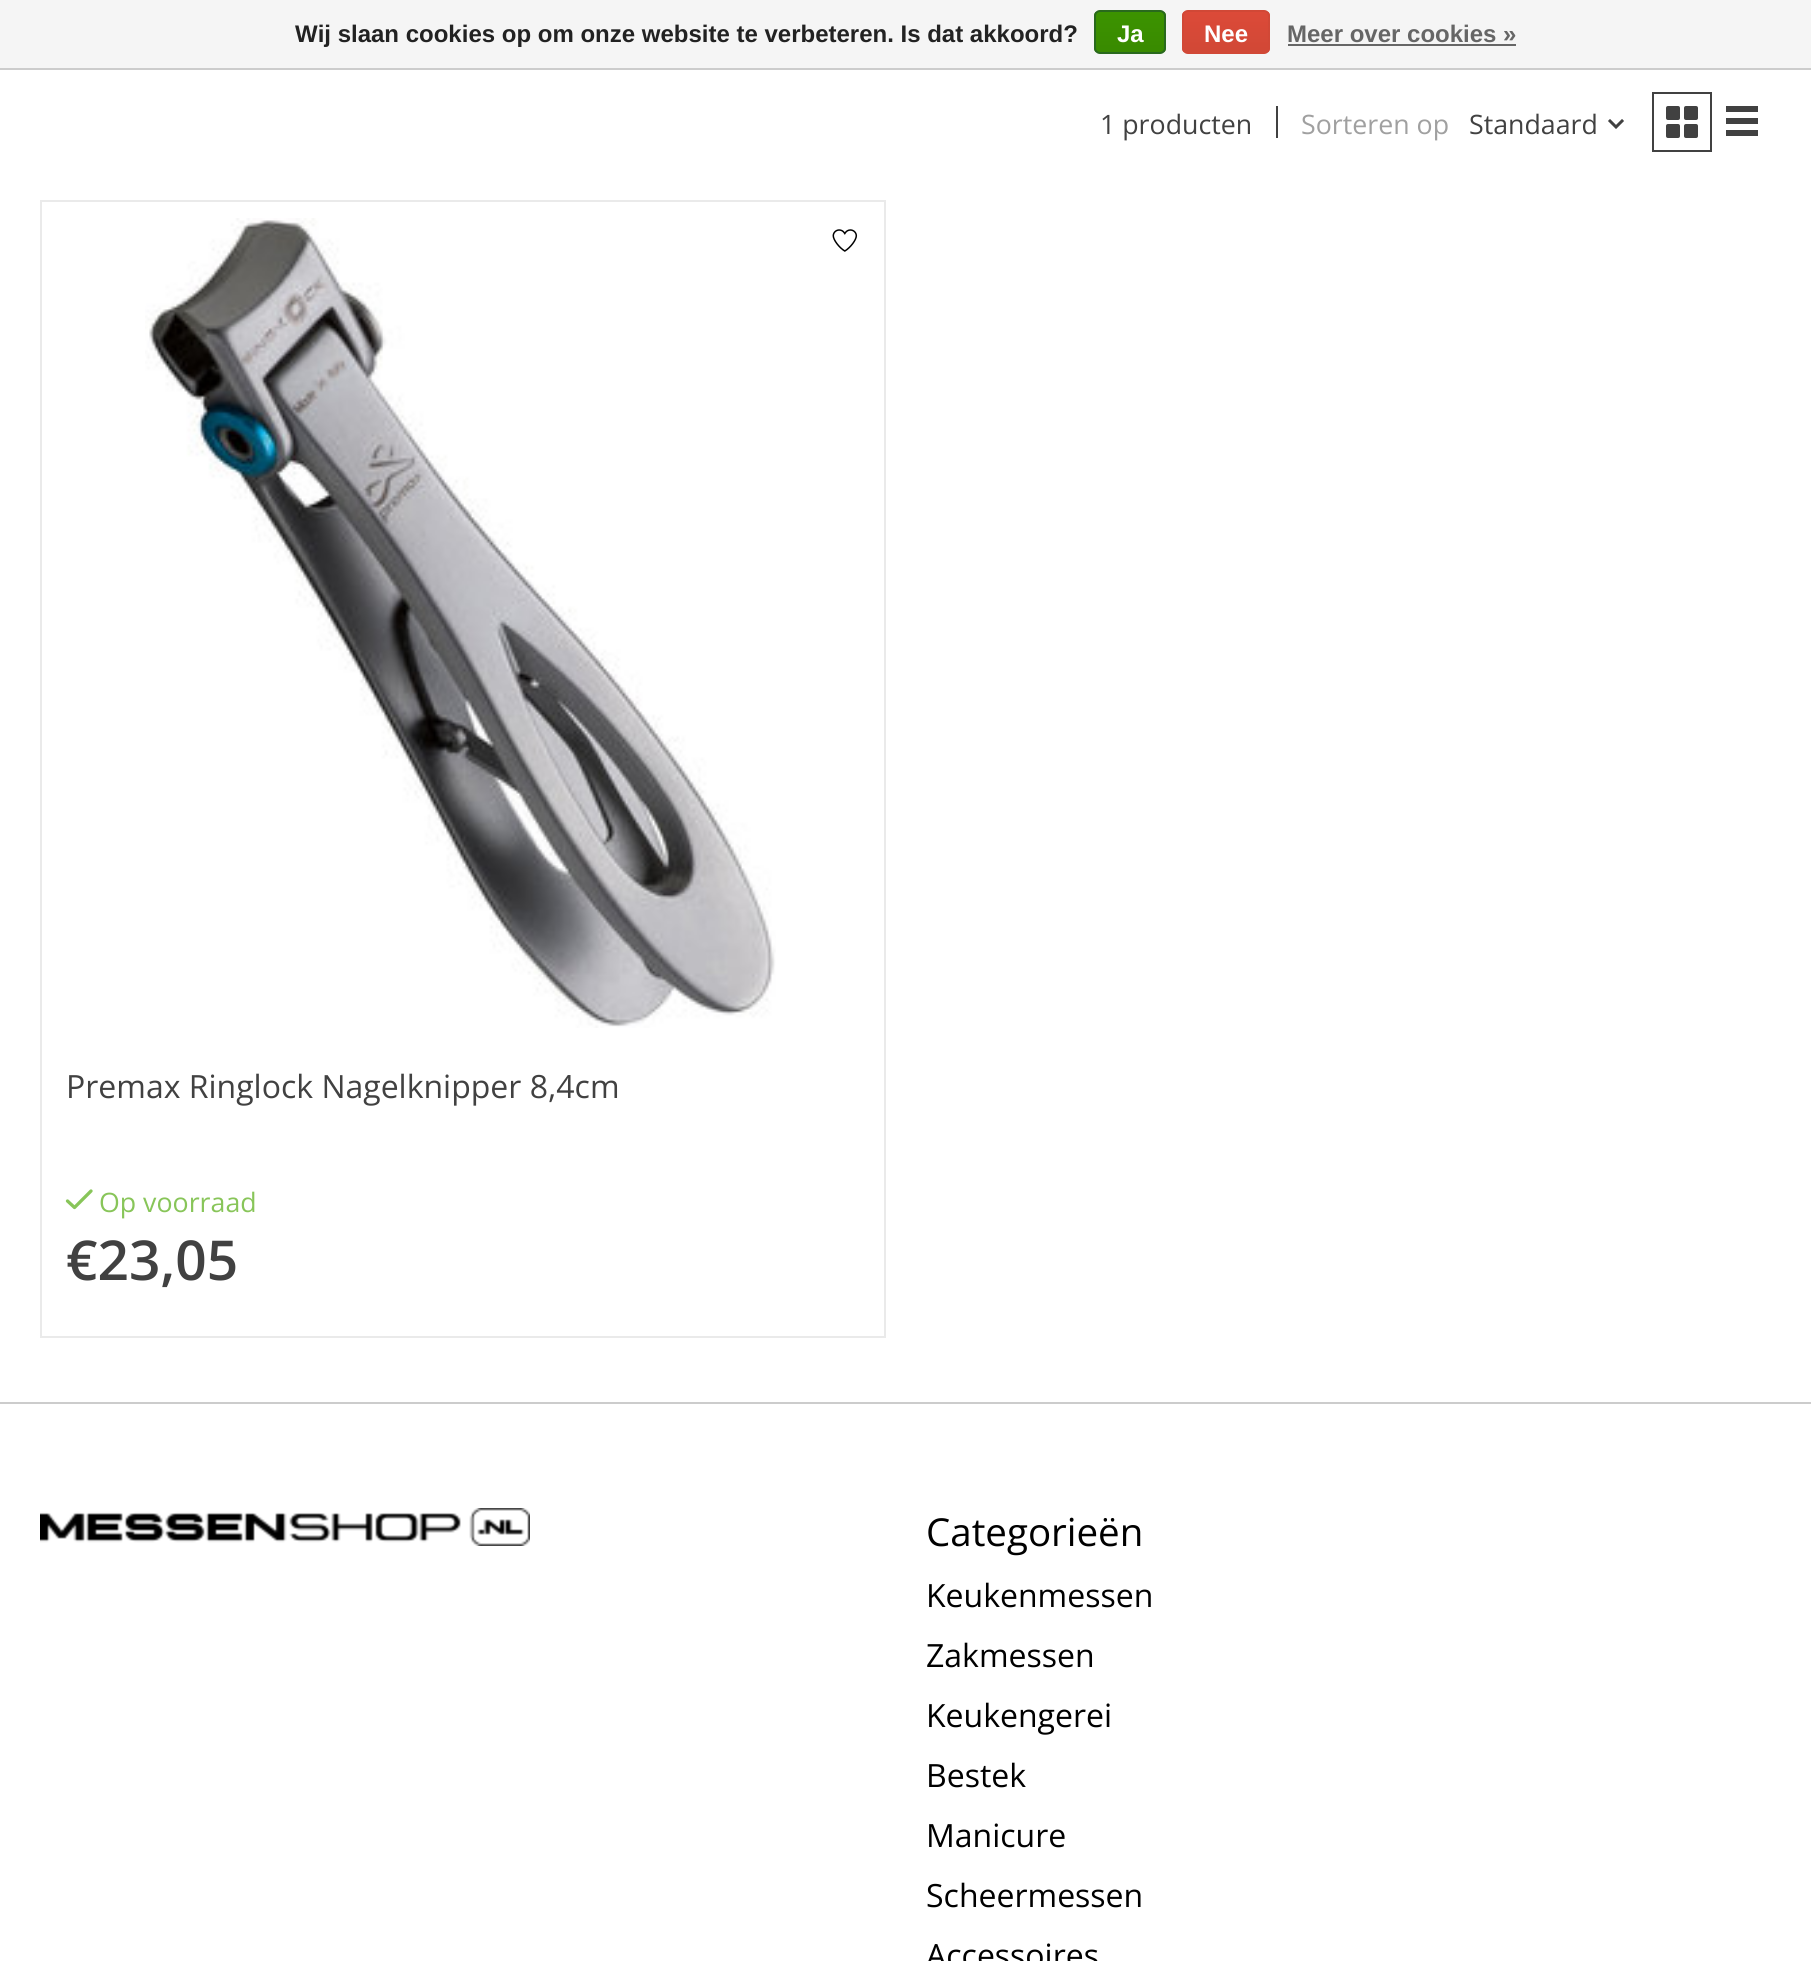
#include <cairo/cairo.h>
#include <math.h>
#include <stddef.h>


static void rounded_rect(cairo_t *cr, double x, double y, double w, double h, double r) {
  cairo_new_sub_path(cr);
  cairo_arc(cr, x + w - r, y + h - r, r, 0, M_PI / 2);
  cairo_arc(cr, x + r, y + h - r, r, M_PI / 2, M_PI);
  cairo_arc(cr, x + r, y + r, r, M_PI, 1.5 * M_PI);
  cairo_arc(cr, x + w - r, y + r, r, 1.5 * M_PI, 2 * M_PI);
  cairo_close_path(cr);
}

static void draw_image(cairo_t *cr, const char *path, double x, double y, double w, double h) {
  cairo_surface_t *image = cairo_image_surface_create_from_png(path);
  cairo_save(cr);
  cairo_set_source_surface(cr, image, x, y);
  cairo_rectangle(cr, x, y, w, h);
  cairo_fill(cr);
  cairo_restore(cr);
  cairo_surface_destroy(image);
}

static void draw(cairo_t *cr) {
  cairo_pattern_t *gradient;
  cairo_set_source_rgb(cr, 1, 1, 1);
  cairo_paint(cr);
  cairo_set_source_rgb(cr, 245 / 255.0, 245 / 255.0, 245 / 255.0);
  cairo_rectangle(cr, 0, 0, 1811, 68);
  cairo_fill(cr);
  cairo_set_source_rgb(cr, 204 / 255.0, 204 / 255.0, 204 / 255.0);
  cairo_rectangle(cr, 0, 68, 1811, 2);
  cairo_fill(cr);
  cairo_save(cr);
  rounded_rect(cr, 1094, 10, 72, 44, 6);
  cairo_clip(cr);
  gradient = cairo_pattern_create_linear(1130, 12, 1130, 52);
  cairo_pattern_add_color_stop_rgba(gradient, 0, 60 / 255.0, 147 / 255.0, 0, 1);
  cairo_pattern_add_color_stop_rgba(gradient, 1, 57 / 255.0, 138 / 255.0, 0, 1);
  cairo_set_source(cr, gradient);
  cairo_pattern_destroy(gradient);
  cairo_rectangle(cr, 1094, 12, 72, 40);
  cairo_fill(cr);
  cairo_restore(cr);
  rounded_rect(cr, 1095, 11, 70, 42, 5);
  cairo_set_source_rgb(cr, 41 / 255.0, 105 / 255.0, 29 / 255.0);
  cairo_stroke(cr);
  cairo_save(cr);
  rounded_rect(cr, 1182, 10, 88, 44, 6);
  cairo_clip(cr);
  gradient = cairo_pattern_create_linear(1226, 12, 1226, 52);
  cairo_pattern_add_color_stop_rgba(gradient, 0, 220 / 255.0, 74 / 255.0, 56 / 255.0, 1);
  cairo_pattern_add_color_stop_rgba(gradient, 1, 209 / 255.0, 72 / 255.0, 54 / 255.0, 1);
  cairo_set_source(cr, gradient);
  cairo_pattern_destroy(gradient);
  cairo_rectangle(cr, 1182, 12, 88, 40);
  cairo_fill(cr);
  cairo_restore(cr);
  rounded_rect(cr, 1183, 11, 86, 42, 5);
  cairo_set_source_rgb(cr, 209 / 255.0, 72 / 255.0, 54 / 255.0);
  cairo_stroke(cr);
  cairo_set_source_rgb(cr, 102 / 255.0, 102 / 255.0, 102 / 255.0);
  cairo_rectangle(cr, 1288, 44, 228, 2);
  cairo_fill(cr);
  cairo_set_source_rgb(cr, 65 / 255.0, 65 / 255.0, 65 / 255.0);
  cairo_rectangle(cr, 1276, 106, 2, 32);
  cairo_fill(cr);
  draw_image(cr, "images/1.png", 1608, 119, 16, 10);
  cairo_rectangle(cr, 1653, 93, 58, 58);
  cairo_stroke(cr);
  draw_image(cr, "images/2.png", 1666, 106, 32, 32);
  cairo_rectangle(cr, 1726, 106, 32, 6);
  cairo_fill(cr);
  cairo_rectangle(cr, 1726, 118, 32, 6);
  cairo_fill(cr);
  cairo_rectangle(cr, 1726, 130, 32, 6);
  cairo_fill(cr);
  cairo_rectangle(cr, 41, 201, 844, 1136);
  cairo_set_source_rgb(cr, 234 / 255.0, 234 / 255.0, 234 / 255.0);
  cairo_stroke(cr);
  draw_image(cr, "images/3.png", 145, 218, 631, 810);
  draw_image(cr, "images/4.png", 832, 229, 26, 23);
  cairo_new_path(cr);
  cairo_move_to(cr, 67.5, 1201);
  cairo_line_to(cr, 74.5, 1207.5);
  cairo_line_to(cr, 91, 1191);
  cairo_set_source_rgb(cr, 136 / 255.0, 197 / 255.0, 89 / 255.0);
  cairo_set_line_width(cr, 3.3);
  cairo_set_line_cap(cr, CAIRO_LINE_CAP_ROUND);
  cairo_set_line_join(cr, CAIRO_LINE_JOIN_ROUND);
  cairo_stroke(cr);
  cairo_set_source_rgb(cr, 204 / 255.0, 204 / 255.0, 204 / 255.0);
  cairo_rectangle(cr, 0, 1402, 1811, 2);
  cairo_fill(cr);
  draw_image(cr, "images/5.png", 40, 1508, 490, 38);
  cairo_select_font_face(cr, "Liberation Sans", CAIRO_FONT_SLANT_NORMAL, CAIRO_FONT_WEIGHT_BOLD);
  cairo_set_font_size(cr, 24);
  cairo_set_source_rgb(cr, 34 / 255.0, 34 / 255.0, 34 / 255.0);
  cairo_move_to(cr, 295, 42);
  cairo_show_text(cr, "Wij slaan cookies op om onze website te verbeteren. Is dat akkoord?");
  cairo_set_source_rgb(cr, 1, 1, 1);
  cairo_move_to(cr, 1117, 42);
  cairo_show_text(cr, "Ja");
  cairo_move_to(cr, 1204, 42);
  cairo_show_text(cr, "Nee");
  cairo_set_source_rgb(cr, 102 / 255.0, 102 / 255.0, 102 / 255.0);
  cairo_move_to(cr, 1287, 42);
  cairo_show_text(cr, "Meer over cookies »");
  cairo_select_font_face(cr, "Open Sans", CAIRO_FONT_SLANT_NORMAL, CAIRO_FONT_WEIGHT_NORMAL);
  cairo_set_font_size(cr, 26.75);
  cairo_set_source_rgb(cr, 65 / 255.0, 65 / 255.0, 65 / 255.0);
  cairo_move_to(cr, 1100, 134);
  cairo_show_text(cr, "1 producten");
  cairo_set_source_rgb(cr, 160 / 255.0, 160 / 255.0, 160 / 255.0);
  cairo_move_to(cr, 1301, 134);
  cairo_show_text(cr, "Sorteren op");
  cairo_set_source_rgb(cr, 65 / 255.0, 65 / 255.0, 65 / 255.0);
  cairo_move_to(cr, 1469, 134);
  cairo_show_text(cr, "Standaard");
  cairo_set_font_size(cr, 32);
  cairo_move_to(cr, 66, 1098);
  cairo_show_text(cr, "Premax Ringlock Nagelknipper 8,4cm");
  cairo_set_font_size(cr, 26.75);
  cairo_set_source_rgb(cr, 136 / 255.0, 197 / 255.0, 89 / 255.0);
  cairo_move_to(cr, 99, 1212);
  cairo_show_text(cr, "Op voorraad");
  cairo_select_font_face(cr, "Open Sans SemiBold", CAIRO_FONT_SLANT_NORMAL, CAIRO_FONT_WEIGHT_NORMAL);
  cairo_set_font_size(cr, 55);
  cairo_set_source_rgb(cr, 65 / 255.0, 65 / 255.0, 65 / 255.0);
  cairo_move_to(cr, 66, 1280);
  cairo_show_text(cr, "€23,05");
  cairo_select_font_face(cr, "Open Sans", CAIRO_FONT_SLANT_NORMAL, CAIRO_FONT_WEIGHT_NORMAL);
  cairo_set_font_size(cr, 38.5);
  cairo_set_source_rgb(cr, 0, 0, 0);
  cairo_move_to(cr, 926, 1546);
  cairo_show_text(cr, "Categorieën");
  cairo_set_font_size(cr, 32);
  cairo_move_to(cr, 926, 1607);
  cairo_show_text(cr, "Keukenmessen");
  cairo_move_to(cr, 926, 1667);
  cairo_show_text(cr, "Zakmessen");
  cairo_move_to(cr, 926, 1727);
  cairo_show_text(cr, "Keukengerei");
  cairo_move_to(cr, 926, 1787);
  cairo_show_text(cr, "Bestek");
  cairo_move_to(cr, 926, 1847);
  cairo_show_text(cr, "Manicure");
  cairo_move_to(cr, 926, 1907);
  cairo_show_text(cr, "Scheermessen");
  cairo_move_to(cr, 926, 1967);
  cairo_show_text(cr, "Accessoires");
}

int main(void) {
  cairo_surface_t *surface = cairo_image_surface_create(CAIRO_FORMAT_RGB24, 1811, 1961);
  cairo_t *cr = cairo_create(surface);
  cairo_font_options_t *options = cairo_font_options_create();
  cairo_font_options_set_hint_metrics(options, CAIRO_HINT_METRICS_OFF);
  cairo_font_options_set_hint_style(options, CAIRO_HINT_STYLE_NONE);
  cairo_set_font_options(cr, options);
  cairo_set_miter_limit(cr, 4);
  draw(cr);
  cairo_surface_write_to_png(surface, "out.png");
  cairo_font_options_destroy(options);
  cairo_destroy(cr);
  cairo_surface_destroy(surface);
  return 0;
}
